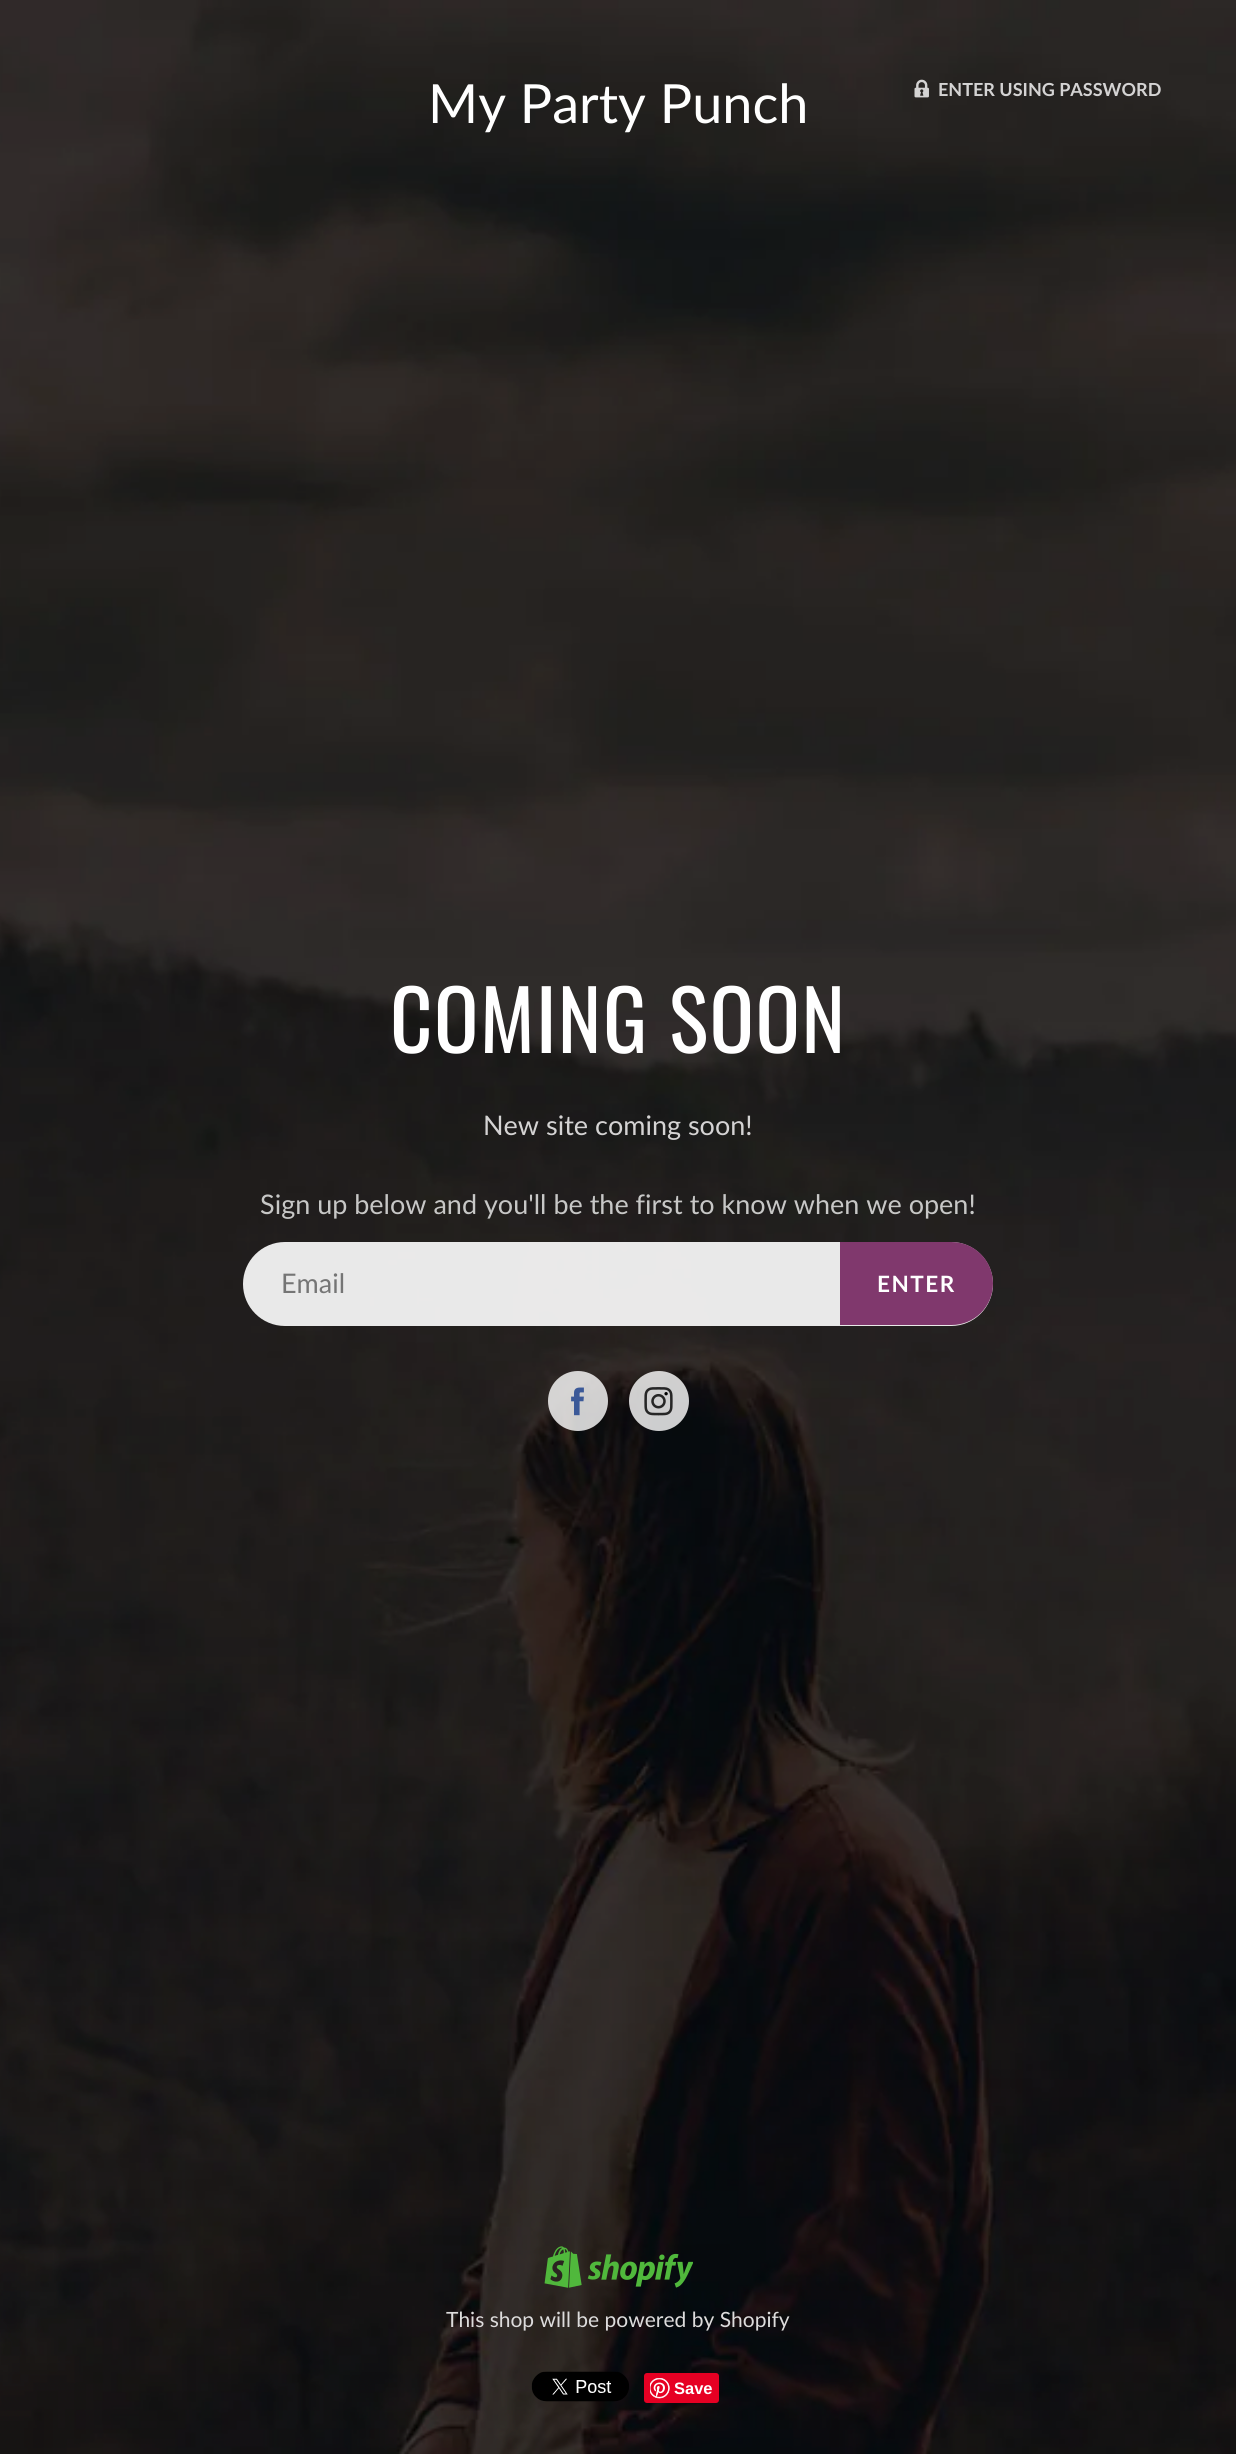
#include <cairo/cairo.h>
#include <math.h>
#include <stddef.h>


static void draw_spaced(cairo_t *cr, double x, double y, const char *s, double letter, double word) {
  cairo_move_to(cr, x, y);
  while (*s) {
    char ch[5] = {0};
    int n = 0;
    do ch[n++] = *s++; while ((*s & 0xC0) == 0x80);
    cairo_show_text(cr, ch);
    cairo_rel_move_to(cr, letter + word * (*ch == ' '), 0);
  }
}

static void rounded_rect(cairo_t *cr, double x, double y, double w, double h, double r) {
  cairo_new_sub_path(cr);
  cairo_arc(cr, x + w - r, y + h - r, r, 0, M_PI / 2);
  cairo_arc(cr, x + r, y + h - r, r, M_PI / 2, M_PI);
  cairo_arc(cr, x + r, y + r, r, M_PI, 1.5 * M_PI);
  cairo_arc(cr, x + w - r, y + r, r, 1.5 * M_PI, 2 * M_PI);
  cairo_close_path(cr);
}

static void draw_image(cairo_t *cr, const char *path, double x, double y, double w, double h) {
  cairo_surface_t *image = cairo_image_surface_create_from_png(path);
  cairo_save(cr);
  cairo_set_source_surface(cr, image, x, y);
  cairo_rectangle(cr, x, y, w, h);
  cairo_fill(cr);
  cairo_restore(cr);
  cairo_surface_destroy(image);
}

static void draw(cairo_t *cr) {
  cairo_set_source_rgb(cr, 1, 1, 1);
  cairo_paint(cr);
  draw_image(cr, "images/1.png", 0, 0, 1236, 2454);
  draw_image(cr, "images/2.png", 914, 79, 15, 19);
  cairo_set_source_rgba(cr, 1, 1, 1, 0.9);
  rounded_rect(cr, 243, 1242, 750, 84, 42);
  cairo_fill(cr);
  cairo_set_source_rgb(cr, 128 / 255.0, 56 / 255.0, 109 / 255.0);
  cairo_new_path(cr);
  cairo_move_to(cr, 840, 1242);
  cairo_line_to(cr, 951.5, 1242);
  cairo_curve_to(cr, 974.5, 1242, 993, 1260.5, 993, 1283.5);
  cairo_curve_to(cr, 993, 1306.5, 974.5, 1325, 951.5, 1325);
  cairo_line_to(cr, 840, 1325);
  cairo_close_path(cr);
  cairo_fill(cr);
  cairo_set_source_rgba(cr, 1, 1, 1, 0.8);
  cairo_arc(cr, 578, 1401, 30, 0, 2 * M_PI);
  cairo_fill(cr);
  draw_image(cr, "images/3.png", 571, 1387, 13, 29);
  cairo_arc(cr, 659, 1401, 30, 0, 2 * M_PI);
  cairo_fill(cr);
  draw_image(cr, "images/4.png", 644, 1387, 29, 29);
  draw_image(cr, "images/5.png", 544, 2246, 149, 42);
  draw_image(cr, "images/6.png", 531, 2371, 98, 31);
  cairo_set_source_rgb(cr, 230 / 255.0, 0, 35 / 255.0);
  rounded_rect(cr, 644, 2373, 75, 30, 3);
  cairo_fill(cr);
  draw_image(cr, "images/7.png", 650, 2378, 20, 21);
  cairo_select_font_face(cr, "Lato", CAIRO_FONT_SLANT_NORMAL, CAIRO_FONT_WEIGHT_NORMAL);
  cairo_set_font_size(cr, 54);
  cairo_set_source_rgb(cr, 1, 1, 1);
  cairo_move_to(cr, 428, 123);
  cairo_show_text(cr, "My Party Punch");
  cairo_select_font_face(cr, "Lato", CAIRO_FONT_SLANT_NORMAL, CAIRO_FONT_WEIGHT_BOLD);
  cairo_set_font_size(cr, 18);
  cairo_set_source_rgb(cr, 212 / 255.0, 211 / 255.0, 211 / 255.0);
  cairo_move_to(cr, 938, 96);
  cairo_show_text(cr, "ENTER USING PASSWORD");
  cairo_select_font_face(cr, "Oswald", CAIRO_FONT_SLANT_NORMAL, CAIRO_FONT_WEIGHT_NORMAL);
  cairo_set_font_size(cr, 82.5);
  cairo_set_source_rgb(cr, 1, 1, 1);
  draw_spaced(cr, 390, 1053, "COMING SOON", 1.5, 0);
  cairo_select_font_face(cr, "Lato", CAIRO_FONT_SLANT_NORMAL, CAIRO_FONT_WEIGHT_NORMAL);
  cairo_set_font_size(cr, 27);
  cairo_set_source_rgb(cr, 212 / 255.0, 211 / 255.0, 211 / 255.0);
  cairo_move_to(cr, 483, 1135);
  cairo_show_text(cr, "New site coming soon!");
  cairo_set_source_rgb(cr, 199 / 255.0, 199 / 255.0, 198 / 255.0);
  cairo_move_to(cr, 260, 1214);
  cairo_show_text(cr, "Sign up below and you'll be the first to know when we open!");
  cairo_set_source_rgb(cr, 117 / 255.0, 117 / 255.0, 117 / 255.0);
  cairo_move_to(cr, 281, 1293);
  cairo_show_text(cr, "Email");
  cairo_select_font_face(cr, "Lato", CAIRO_FONT_SLANT_NORMAL, CAIRO_FONT_WEIGHT_BOLD);
  cairo_set_font_size(cr, 22.5);
  cairo_set_source_rgb(cr, 1, 1, 1);
  draw_spaced(cr, 877, 1292, "ENTER", 1.5, 0);
  cairo_select_font_face(cr, "Lato", CAIRO_FONT_SLANT_NORMAL, CAIRO_FONT_WEIGHT_NORMAL);
  cairo_set_font_size(cr, 21);
  cairo_set_source_rgb(cr, 221 / 255.0, 220 / 255.0, 220 / 255.0);
  cairo_move_to(cr, 446, 2327);
  cairo_show_text(cr, "This shop will be powered by Shopify");
  cairo_select_font_face(cr, "Liberation Sans", CAIRO_FONT_SLANT_NORMAL, CAIRO_FONT_WEIGHT_BOLD);
  cairo_set_font_size(cr, 16.5);
  cairo_set_source_rgb(cr, 1, 1, 1);
  cairo_move_to(cr, 674, 2394);
  cairo_show_text(cr, "Save");
}

int main(void) {
  cairo_surface_t *surface = cairo_image_surface_create(CAIRO_FORMAT_RGB24, 1236, 2454);
  cairo_t *cr = cairo_create(surface);
  cairo_font_options_t *options = cairo_font_options_create();
  cairo_font_options_set_hint_metrics(options, CAIRO_HINT_METRICS_OFF);
  cairo_font_options_set_hint_style(options, CAIRO_HINT_STYLE_NONE);
  cairo_set_font_options(cr, options);
  cairo_set_miter_limit(cr, 4);
  draw(cr);
  cairo_surface_write_to_png(surface, "out.png");
  cairo_font_options_destroy(options);
  cairo_destroy(cr);
  cairo_surface_destroy(surface);
  return 0;
}
